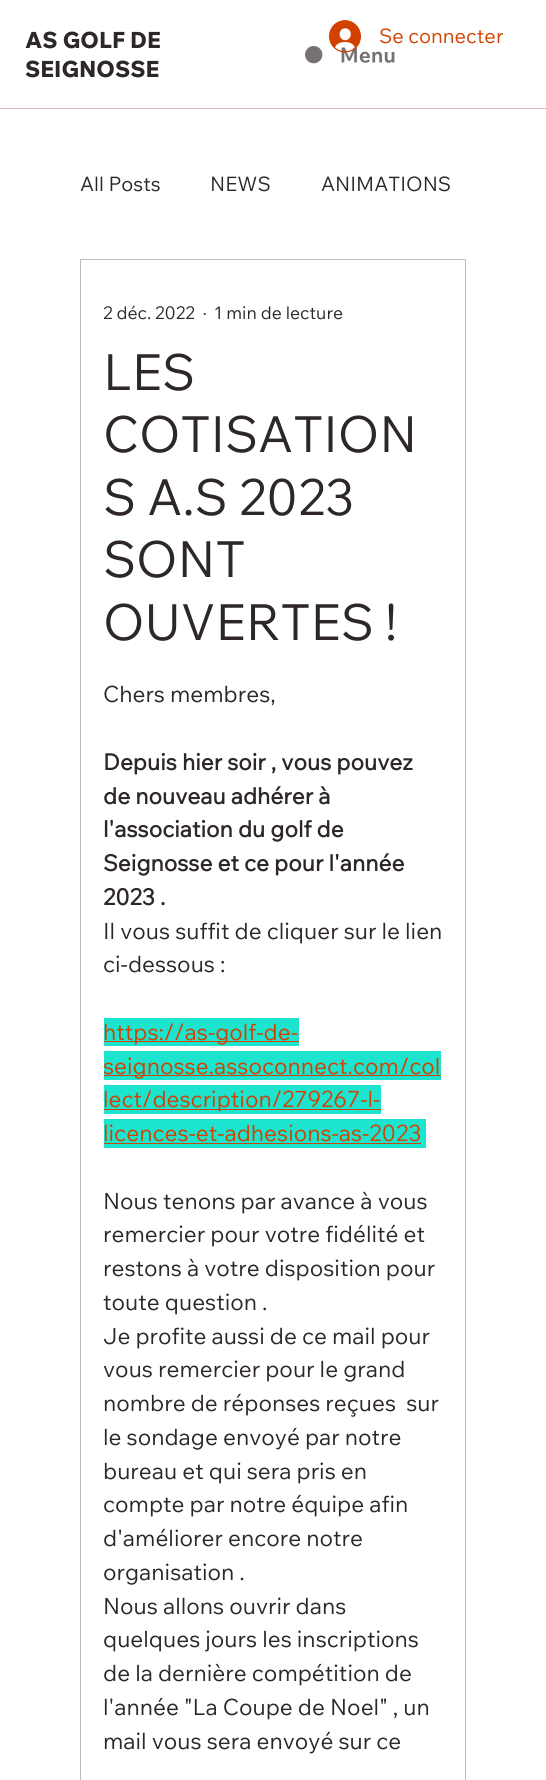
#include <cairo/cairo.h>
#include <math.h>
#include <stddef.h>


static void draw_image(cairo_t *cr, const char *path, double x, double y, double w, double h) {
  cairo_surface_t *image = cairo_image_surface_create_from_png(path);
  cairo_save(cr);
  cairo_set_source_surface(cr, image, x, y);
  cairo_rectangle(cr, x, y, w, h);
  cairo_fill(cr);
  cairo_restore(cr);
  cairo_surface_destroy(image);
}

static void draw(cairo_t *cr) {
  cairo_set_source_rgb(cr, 1, 1, 1);
  cairo_paint(cr);
  draw_image(cr, "images/1.png", 305, 46, 90, 18);
  draw_image(cr, "images/2.png", 329, 20, 32, 33);
  cairo_set_source_rgb(cr, 215 / 255.0, 190 / 255.0, 190 / 255.0);
  cairo_rectangle(cr, 0, 108, 546, 1);
  cairo_fill(cr);
  cairo_rectangle(cr, 80.5, 259.5, 385, 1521);
  cairo_set_source_rgb(cr, 192 / 255.0, 188 / 255.0, 188 / 255.0);
  cairo_set_line_width(cr, 1);
  cairo_stroke(cr);
  cairo_set_source_rgb(cr, 29 / 255.0, 228 / 255.0, 206 / 255.0);
  cairo_rectangle(cr, 104, 1018, 195, 28);
  cairo_fill(cr);
  cairo_set_source_rgb(cr, 209 / 255.0, 66 / 255.0, 0);
  cairo_rectangle(cr, 104, 1041, 195, 1);
  cairo_fill(cr);
  cairo_set_source_rgb(cr, 29 / 255.0, 228 / 255.0, 206 / 255.0);
  cairo_rectangle(cr, 104, 1051, 337, 29);
  cairo_fill(cr);
  cairo_set_source_rgb(cr, 209 / 255.0, 66 / 255.0, 0);
  cairo_rectangle(cr, 104, 1075, 337, 1);
  cairo_fill(cr);
  cairo_set_source_rgb(cr, 29 / 255.0, 228 / 255.0, 206 / 255.0);
  cairo_rectangle(cr, 104, 1085, 277, 29);
  cairo_fill(cr);
  cairo_set_source_rgb(cr, 209 / 255.0, 66 / 255.0, 0);
  cairo_rectangle(cr, 104, 1109, 277, 1);
  cairo_fill(cr);
  cairo_set_source_rgb(cr, 29 / 255.0, 228 / 255.0, 206 / 255.0);
  cairo_rectangle(cr, 104, 1119, 322, 29);
  cairo_fill(cr);
  cairo_set_source_rgb(cr, 209 / 255.0, 66 / 255.0, 0);
  cairo_rectangle(cr, 104, 1143, 317, 1);
  cairo_fill(cr);
  cairo_select_font_face(cr, "Wix Madefor Text ExtraBold", CAIRO_FONT_SLANT_NORMAL, CAIRO_FONT_WEIGHT_NORMAL);
  cairo_set_font_size(cr, 22.5);
  cairo_set_source_rgb(cr, 45 / 255.0, 39 / 255.0, 39 / 255.0);
  cairo_move_to(cr, 25, 48);
  cairo_show_text(cr, "AS GOLF DE");
  cairo_move_to(cr, 25, 77);
  cairo_show_text(cr, "SEIGNOSSE");
  cairo_select_font_face(cr, "Wix Madefor Text", CAIRO_FONT_SLANT_NORMAL, CAIRO_FONT_WEIGHT_NORMAL);
  cairo_set_font_size(cr, 20);
  cairo_set_source_rgb(cr, 209 / 255.0, 66 / 255.0, 0);
  cairo_move_to(cr, 379, 43);
  cairo_show_text(cr, "Se connecter");
  cairo_set_source_rgb(cr, 45 / 255.0, 39 / 255.0, 39 / 255.0);
  cairo_move_to(cr, 80, 191);
  cairo_show_text(cr, "All Posts");
  cairo_move_to(cr, 210, 191);
  cairo_show_text(cr, "NEWS");
  cairo_move_to(cr, 321, 191);
  cairo_show_text(cr, "ANIMATIONS");
  cairo_set_font_size(cr, 17.5);
  cairo_move_to(cr, 103, 319);
  cairo_show_text(cr, "2 déc. 2022");
  cairo_move_to(cr, 203, 319);
  cairo_show_text(cr, "·");
  cairo_move_to(cr, 214, 319);
  cairo_show_text(cr, "1 min de lecture");
  cairo_set_font_size(cr, 50);
  cairo_move_to(cr, 103, 390);
  cairo_show_text(cr, "LES");
  cairo_move_to(cr, 103, 452);
  cairo_show_text(cr, "COTISATION");
  cairo_move_to(cr, 103, 515);
  cairo_show_text(cr, "S A.S 2023");
  cairo_move_to(cr, 103, 577);
  cairo_show_text(cr, "SONT");
  cairo_move_to(cr, 103, 640);
  cairo_show_text(cr, "OUVERTES !");
  cairo_set_font_size(cr, 22.5);
  cairo_move_to(cr, 103, 702);
  cairo_show_text(cr, "Chers membres,");
  cairo_select_font_face(cr, "Wix Madefor Text", CAIRO_FONT_SLANT_NORMAL, CAIRO_FONT_WEIGHT_BOLD);
  cairo_move_to(cr, 103, 770);
  cairo_show_text(cr, "Depuis hier soir , vous pouvez");
  cairo_move_to(cr, 103, 804);
  cairo_show_text(cr, "de nouveau adhérer à");
  cairo_move_to(cr, 103, 837);
  cairo_show_text(cr, "l'association du golf de");
  cairo_move_to(cr, 103, 871);
  cairo_show_text(cr, "Seignosse et ce pour l'année");
  cairo_move_to(cr, 103, 905);
  cairo_show_text(cr, "2023 .");
  cairo_select_font_face(cr, "Wix Madefor Text", CAIRO_FONT_SLANT_NORMAL, CAIRO_FONT_WEIGHT_NORMAL);
  cairo_move_to(cr, 103, 939);
  cairo_show_text(cr, "Il vous suffit de cliquer sur le lien");
  cairo_move_to(cr, 103, 972);
  cairo_show_text(cr, "ci-dessous :");
  cairo_set_source_rgb(cr, 209 / 255.0, 66 / 255.0, 0);
  cairo_move_to(cr, 103, 1040);
  cairo_show_text(cr, "https://as-golf-de-");
  cairo_move_to(cr, 103, 1074);
  cairo_show_text(cr, "seignosse.assoconnect.com/col");
  cairo_move_to(cr, 103, 1107);
  cairo_show_text(cr, "lect/description/279267-l-");
  cairo_move_to(cr, 103, 1141);
  cairo_show_text(cr, "licences-et-adhesions-as-2023");
  cairo_set_source_rgb(cr, 45 / 255.0, 39 / 255.0, 39 / 255.0);
  cairo_move_to(cr, 103, 1209);
  cairo_show_text(cr, "Nous tenons par avance à vous");
  cairo_move_to(cr, 103, 1242);
  cairo_show_text(cr, "remercier pour votre fidélité et");
  cairo_move_to(cr, 103, 1276);
  cairo_show_text(cr, "restons à votre disposition pour");
  cairo_move_to(cr, 103, 1310);
  cairo_show_text(cr, "toute question .");
  cairo_move_to(cr, 103, 1344);
  cairo_show_text(cr, "Je profite aussi de ce mail pour");
  cairo_move_to(cr, 103, 1377);
  cairo_show_text(cr, "vous remercier pour le grand");
  cairo_move_to(cr, 103, 1411);
  cairo_show_text(cr, "nombre de réponses reçues  sur");
  cairo_move_to(cr, 103, 1445);
  cairo_show_text(cr, "le sondage envoyé par notre");
  cairo_move_to(cr, 103, 1479);
  cairo_show_text(cr, "bureau et qui sera pris en");
  cairo_move_to(cr, 103, 1512);
  cairo_show_text(cr, "compte par notre équipe afin");
  cairo_move_to(cr, 103, 1546);
  cairo_show_text(cr, "d'améliorer encore notre");
  cairo_move_to(cr, 103, 1580);
  cairo_show_text(cr, "organisation .");
  cairo_move_to(cr, 103, 1614);
  cairo_show_text(cr, "Nous allons ouvrir dans");
  cairo_move_to(cr, 103, 1647);
  cairo_show_text(cr, "quelques jours les inscriptions");
  cairo_move_to(cr, 103, 1681);
  cairo_show_text(cr, "de la dernière compétition de");
  cairo_move_to(cr, 103, 1715);
  cairo_show_text(cr, "l'année \"La Coupe de Noel\" , un");
  cairo_move_to(cr, 103, 1749);
  cairo_show_text(cr, "mail vous sera envoyé sur ce");
}

int main(void) {
  cairo_surface_t *surface = cairo_image_surface_create(CAIRO_FORMAT_RGB24, 546, 1780);
  cairo_t *cr = cairo_create(surface);
  cairo_font_options_t *options = cairo_font_options_create();
  cairo_font_options_set_hint_metrics(options, CAIRO_HINT_METRICS_OFF);
  cairo_font_options_set_hint_style(options, CAIRO_HINT_STYLE_NONE);
  cairo_set_font_options(cr, options);
  cairo_set_miter_limit(cr, 4);
  draw(cr);
  cairo_surface_write_to_png(surface, "out.png");
  cairo_font_options_destroy(options);
  cairo_destroy(cr);
  cairo_surface_destroy(surface);
  return 0;
}
